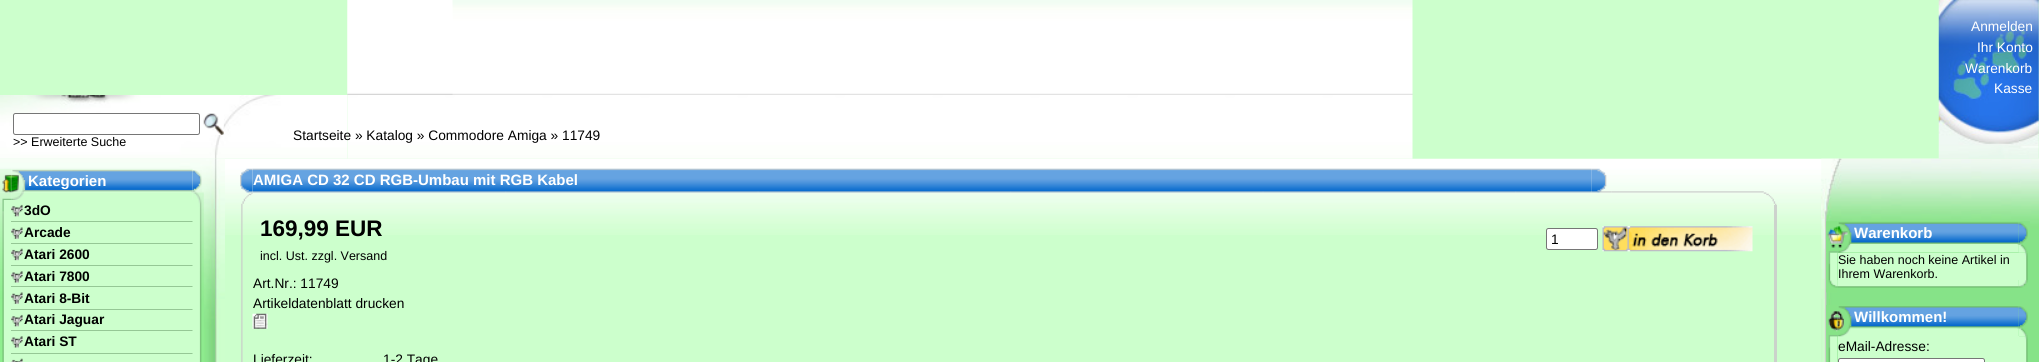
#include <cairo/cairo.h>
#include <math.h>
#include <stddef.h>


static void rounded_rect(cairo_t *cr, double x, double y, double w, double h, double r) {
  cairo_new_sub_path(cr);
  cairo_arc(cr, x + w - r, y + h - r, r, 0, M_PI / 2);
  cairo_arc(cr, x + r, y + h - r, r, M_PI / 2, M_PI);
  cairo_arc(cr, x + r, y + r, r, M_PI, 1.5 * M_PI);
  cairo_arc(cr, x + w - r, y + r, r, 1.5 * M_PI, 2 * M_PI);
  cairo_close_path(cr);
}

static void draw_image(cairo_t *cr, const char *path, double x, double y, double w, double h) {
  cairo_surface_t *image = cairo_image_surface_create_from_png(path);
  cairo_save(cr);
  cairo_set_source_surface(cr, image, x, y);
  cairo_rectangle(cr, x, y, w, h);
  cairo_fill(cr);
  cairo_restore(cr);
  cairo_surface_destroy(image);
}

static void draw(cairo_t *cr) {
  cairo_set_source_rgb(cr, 204 / 255.0, 1, 204 / 255.0);
  cairo_paint(cr);
  draw_image(cr, "images/1.png", 347, 0, 1066, 95);
  draw_image(cr, "images/2.png", 347, 0, 106, 95);
  draw_image(cr, "images/3.png", 1938, 0, 101, 115);
  draw_image(cr, "images/5.png", 347, 95, 1066, 64);
  draw_image(cr, "images/7.png", 0, 158, 2039, 77);
  draw_image(cr, "images/8.png", 0, 158, 225, 204);
  draw_image(cr, "images/4.png", 0, 95, 348, 64);
  draw_image(cr, "images/33.png", 1821, 158, 218, 204);
  draw_image(cr, "images/6.png", 1938, 115, 101, 44);
  draw_image(cr, "images/10.png", 11, 168, 182, 25);
  draw_image(cr, "images/9.png", 0, 168, 12, 25);
  draw_image(cr, "images/11.png", 192, 170, 10, 23);
  draw_image(cr, "images/12.png", 0, 192, 12, 8);
  draw_image(cr, "images/13.png", 11, 192, 182, 8);
  draw_image(cr, "images/14.png", 192, 192, 12, 8);
  draw_image(cr, "images/15.png", 0, 200, 11, 162);
  cairo_set_source_rgb(cr, 204 / 255.0, 1, 204 / 255.0);
  cairo_rectangle(cr, 11, 200, 182, 162);
  cairo_fill(cr);
  cairo_set_source_rgb(cr, 149 / 255.0, 199 / 255.0, 149 / 255.0);
  cairo_rectangle(cr, 11, 221, 182, 1);
  cairo_fill(cr);
  draw_image(cr, "images/16.png", 11, 204, 12, 13);
  cairo_rectangle(cr, 11, 243, 182, 1);
  cairo_fill(cr);
  draw_image(cr, "images/17.png", 11, 227, 12, 12);
  cairo_rectangle(cr, 11, 265, 182, 1);
  cairo_fill(cr);
  draw_image(cr, "images/18.png", 11, 248, 12, 13);
  cairo_rectangle(cr, 11, 286, 182, 1);
  cairo_fill(cr);
  draw_image(cr, "images/19.png", 11, 271, 12, 12);
  cairo_rectangle(cr, 11, 309, 182, 1);
  cairo_fill(cr);
  draw_image(cr, "images/20.png", 11, 292, 12, 12);
  cairo_rectangle(cr, 11, 330, 182, 1);
  cairo_fill(cr);
  draw_image(cr, "images/16.png", 11, 314, 12, 13);
  cairo_rectangle(cr, 11, 353, 182, 1);
  cairo_fill(cr);
  draw_image(cr, "images/19.png", 11, 336, 12, 12);
  draw_image(cr, "images/21.png", 11, 358, 12, 4);
  draw_image(cr, "images/22.png", 192, 200, 12, 162);
  draw_image(cr, "images/24.png", 252, 168, 1340, 25);
  draw_image(cr, "images/23.png", 240, 168, 13, 25);
  draw_image(cr, "images/26.png", 1611, 191, 149, 2);
  draw_image(cr, "images/25.png", 1591, 168, 21, 25);
  draw_image(cr, "images/27.png", 1760, 191, 4, 2);
  draw_image(cr, "images/28.png", 241, 192, 12, 13);
  draw_image(cr, "images/29.png", 1763, 192, 14, 13);
  draw_image(cr, "images/30.png", 241, 205, 2, 157);
  cairo_set_source_rgb(cr, 1, 1, 1);
  rounded_rect(cr, 1546.5, 228.5, 51, 21, 2);
  cairo_fill_preserve(cr);
  cairo_set_source_rgb(cr, 118 / 255.0, 118 / 255.0, 118 / 255.0);
  cairo_set_line_width(cr, 1);
  cairo_stroke(cr);
  draw_image(cr, "images/31.png", 1602, 226, 151, 26);
  draw_image(cr, "images/32.png", 252, 313, 16, 16);
  cairo_set_source_rgba(cr, 203 / 255.0, 205 / 255.0, 203 / 255.0, 0.9);
  cairo_rectangle(cr, 1774, 205, 3, 157);
  cairo_fill(cr);
  draw_image(cr, "images/35.png", 1837, 221, 182, 24);
  draw_image(cr, "images/34.png", 1826, 221, 12, 24);
  draw_image(cr, "images/36.png", 2018, 221, 12, 24);
  draw_image(cr, "images/40.png", 1826, 252, 12, 28);
  draw_image(cr, "images/37.png", 1826, 245, 12, 8);
  cairo_set_source_rgb(cr, 204 / 255.0, 1, 204 / 255.0);
  cairo_rectangle(cr, 1838, 253, 181, 27);
  cairo_fill(cr);
  draw_image(cr, "images/41.png", 2018, 252, 10, 28);
  draw_image(cr, "images/38.png", 1837, 245, 182, 8);
  draw_image(cr, "images/39.png", 2018, 245, 10, 8);
  draw_image(cr, "images/42.png", 1826, 280, 12, 13);
  draw_image(cr, "images/43.png", 1837, 280, 182, 8);
  draw_image(cr, "images/44.png", 2018, 280, 10, 8);
  draw_image(cr, "images/46.png", 1837, 306, 182, 23);
  draw_image(cr, "images/45.png", 1826, 305, 12, 24);
  draw_image(cr, "images/47.png", 2018, 306, 10, 23);
  draw_image(cr, "images/51.png", 1826, 336, 12, 26);
  draw_image(cr, "images/48.png", 1826, 328, 12, 9);
  cairo_rectangle(cr, 1838, 336, 181, 26);
  cairo_fill(cr);
  draw_image(cr, "images/49.png", 1837, 328, 182, 9);
  draw_image(cr, "images/52.png", 2019, 336, 9, 26);
  draw_image(cr, "images/50.png", 2018, 328, 10, 9);
  cairo_set_source_rgb(cr, 1, 1, 1);
  rounded_rect(cr, 1838.5, 358.5, 146, 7, 2);
  cairo_fill_preserve(cr);
  cairo_set_source_rgb(cr, 118 / 255.0, 118 / 255.0, 118 / 255.0);
  cairo_stroke(cr);
  cairo_set_source_rgb(cr, 1, 1, 1);
  rounded_rect(cr, 13.5, 113.5, 186, 21, 2);
  cairo_fill_preserve(cr);
  cairo_set_source_rgb(cr, 118 / 255.0, 118 / 255.0, 118 / 255.0);
  cairo_stroke(cr);
  draw_image(cr, "images/53.png", 203, 113, 21, 22);
  cairo_select_font_face(cr, "Liberation Sans", CAIRO_FONT_SLANT_NORMAL, CAIRO_FONT_WEIGHT_NORMAL);
  cairo_set_font_size(cr, 13.75);
  cairo_set_source_rgb(cr, 1, 1, 1);
  cairo_move_to(cr, 1971, 31);
  cairo_show_text(cr, "Anmelden");
  cairo_move_to(cr, 1977, 52);
  cairo_show_text(cr, "Ihr Konto");
  cairo_move_to(cr, 1965, 73);
  cairo_show_text(cr, "Warenkorb");
  cairo_move_to(cr, 1994, 93);
  cairo_show_text(cr, "Kasse");
  cairo_select_font_face(cr, "Liberation Sans", CAIRO_FONT_SLANT_NORMAL, CAIRO_FONT_WEIGHT_BOLD);
  cairo_set_font_size(cr, 15);
  cairo_move_to(cr, 28, 186);
  cairo_show_text(cr, "Kategorien");
  cairo_set_font_size(cr, 13.75);
  cairo_set_source_rgb(cr, 0, 0, 0);
  cairo_move_to(cr, 24, 215);
  cairo_show_text(cr, "3dO");
  cairo_move_to(cr, 24, 237);
  cairo_show_text(cr, "Arcade");
  cairo_move_to(cr, 24, 259);
  cairo_show_text(cr, "Atari 2600");
  cairo_move_to(cr, 24, 281);
  cairo_show_text(cr, "Atari 7800");
  cairo_move_to(cr, 24, 303);
  cairo_show_text(cr, "Atari 8-Bit");
  cairo_move_to(cr, 24, 324);
  cairo_show_text(cr, "Atari Jaguar");
  cairo_move_to(cr, 24, 346);
  cairo_show_text(cr, "Atari ST");
  cairo_set_font_size(cr, 15);
  cairo_set_source_rgb(cr, 1, 1, 1);
  cairo_move_to(cr, 253, 185);
  cairo_show_text(cr, "AMIGA CD 32 CD RGB-Umbau mit RGB Kabel");
  cairo_set_font_size(cr, 22.5);
  cairo_set_source_rgb(cr, 0, 0, 0);
  cairo_move_to(cr, 260, 236);
  cairo_show_text(cr, "169,99 EUR");
  cairo_select_font_face(cr, "Liberation Sans", CAIRO_FONT_SLANT_NORMAL, CAIRO_FONT_WEIGHT_NORMAL);
  cairo_set_font_size(cr, 12.5);
  cairo_move_to(cr, 260, 260);
  cairo_show_text(cr, "incl. Ust. zzgl. Versand");
  cairo_set_font_size(cr, 13.75);
  cairo_move_to(cr, 1551, 244);
  cairo_show_text(cr, "1");
  cairo_move_to(cr, 253, 288);
  cairo_show_text(cr, "Art.Nr.: 11749");
  cairo_move_to(cr, 253, 308);
  cairo_show_text(cr, "Artikeldatenblatt drucken");
  cairo_move_to(cr, 253, 364);
  cairo_show_text(cr, "Lieferzeit:");
  cairo_move_to(cr, 383, 364);
  cairo_show_text(cr, "1-2 Tage");
  cairo_select_font_face(cr, "Liberation Sans", CAIRO_FONT_SLANT_NORMAL, CAIRO_FONT_WEIGHT_BOLD);
  cairo_set_font_size(cr, 15);
  cairo_set_source_rgb(cr, 1, 1, 1);
  cairo_move_to(cr, 1854, 238);
  cairo_show_text(cr, "Warenkorb");
  cairo_select_font_face(cr, "Liberation Sans", CAIRO_FONT_SLANT_NORMAL, CAIRO_FONT_WEIGHT_NORMAL);
  cairo_set_font_size(cr, 12.5);
  cairo_set_source_rgb(cr, 0, 0, 0);
  cairo_move_to(cr, 1838, 264);
  cairo_show_text(cr, "Sie haben noch keine Artikel in");
  cairo_move_to(cr, 1838, 278);
  cairo_show_text(cr, "Ihrem Warenkorb.");
  cairo_select_font_face(cr, "Liberation Sans", CAIRO_FONT_SLANT_NORMAL, CAIRO_FONT_WEIGHT_BOLD);
  cairo_set_font_size(cr, 15);
  cairo_set_source_rgb(cr, 1, 1, 1);
  cairo_move_to(cr, 1854, 322);
  cairo_show_text(cr, "Willkommen!");
  cairo_select_font_face(cr, "Liberation Sans", CAIRO_FONT_SLANT_NORMAL, CAIRO_FONT_WEIGHT_NORMAL);
  cairo_set_font_size(cr, 13.75);
  cairo_set_source_rgb(cr, 0, 0, 0);
  cairo_move_to(cr, 1838, 351);
  cairo_show_text(cr, "eMail-Adresse:");
  cairo_set_font_size(cr, 12.5);
  cairo_move_to(cr, 13, 146);
  cairo_show_text(cr, ">> Erweiterte Suche");
  cairo_set_font_size(cr, 13.75);
  cairo_move_to(cr, 293, 140);
  cairo_show_text(cr, "Startseite » Katalog » Commodore Amiga » 11749");
}

int main(void) {
  cairo_surface_t *surface = cairo_image_surface_create(CAIRO_FORMAT_RGB24, 2039, 362);
  cairo_t *cr = cairo_create(surface);
  cairo_font_options_t *options = cairo_font_options_create();
  cairo_font_options_set_hint_metrics(options, CAIRO_HINT_METRICS_OFF);
  cairo_font_options_set_hint_style(options, CAIRO_HINT_STYLE_NONE);
  cairo_set_font_options(cr, options);
  cairo_set_miter_limit(cr, 4);
  draw(cr);
  cairo_surface_write_to_png(surface, "out.png");
  cairo_font_options_destroy(options);
  cairo_destroy(cr);
  cairo_surface_destroy(surface);
  return 0;
}
